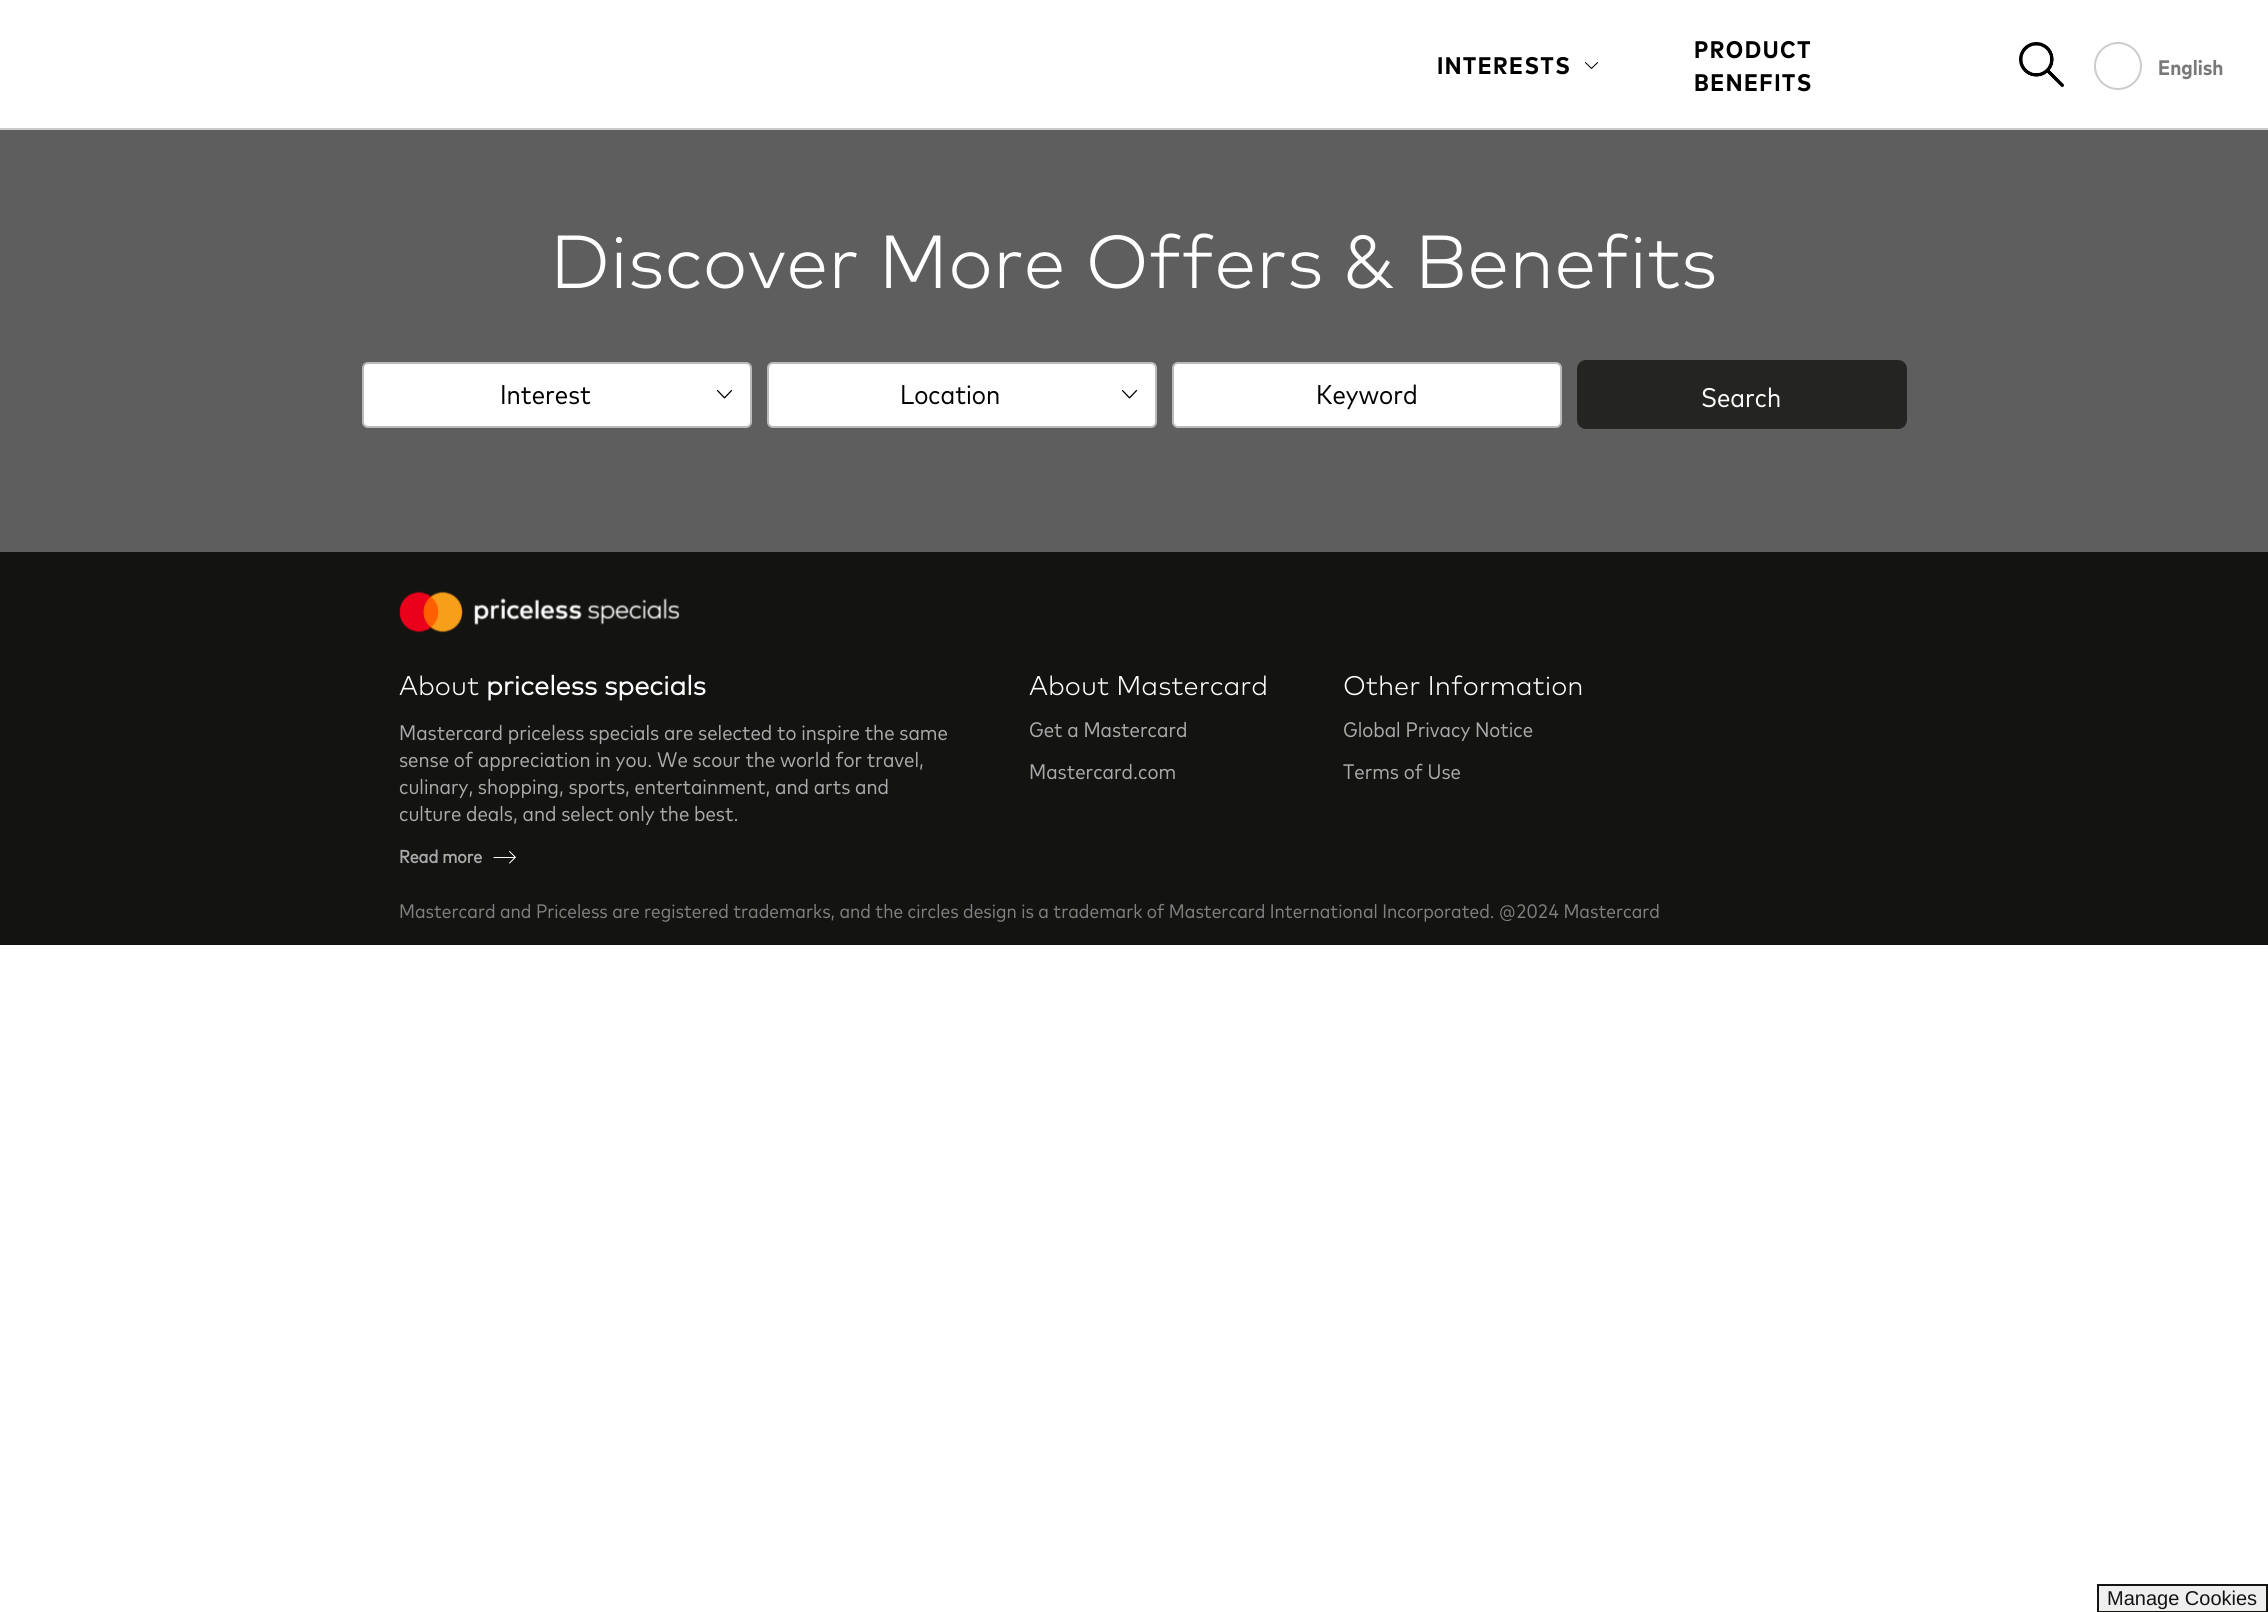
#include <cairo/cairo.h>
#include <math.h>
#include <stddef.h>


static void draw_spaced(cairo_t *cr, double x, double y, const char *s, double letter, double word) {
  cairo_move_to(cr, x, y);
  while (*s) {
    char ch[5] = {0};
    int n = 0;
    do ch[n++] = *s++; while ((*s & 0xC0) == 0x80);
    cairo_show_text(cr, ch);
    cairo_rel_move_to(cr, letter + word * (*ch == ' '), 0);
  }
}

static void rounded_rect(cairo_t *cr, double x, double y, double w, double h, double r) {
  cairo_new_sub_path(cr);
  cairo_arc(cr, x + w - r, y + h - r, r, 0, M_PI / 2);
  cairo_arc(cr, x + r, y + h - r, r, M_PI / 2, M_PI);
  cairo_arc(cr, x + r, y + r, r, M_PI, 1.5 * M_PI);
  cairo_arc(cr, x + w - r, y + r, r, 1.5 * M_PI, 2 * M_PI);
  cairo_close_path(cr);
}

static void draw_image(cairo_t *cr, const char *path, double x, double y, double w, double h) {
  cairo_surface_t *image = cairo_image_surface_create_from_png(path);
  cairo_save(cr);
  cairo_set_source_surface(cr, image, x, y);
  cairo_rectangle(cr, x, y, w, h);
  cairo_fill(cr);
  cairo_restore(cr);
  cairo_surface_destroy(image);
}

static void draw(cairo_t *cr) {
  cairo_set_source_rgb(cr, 1, 1, 1);
  cairo_paint(cr);
  cairo_set_source_rgb(cr, 204 / 255.0, 204 / 255.0, 204 / 255.0);
  cairo_rectangle(cr, 0, 128, 2268, 2);
  cairo_fill(cr);
  draw_image(cr, "images/1.png", 1585, 62, 13, 7);
  draw_image(cr, "images/2.png", 2019, 42, 45, 45);
  cairo_arc(cr, 2118, 66, 23, 0, 2 * M_PI);
  cairo_stroke(cr);
  cairo_set_source_rgb(cr, 94 / 255.0, 94 / 255.0, 94 / 255.0);
  cairo_rectangle(cr, 0, 130, 2268, 422);
  cairo_fill(cr);
  cairo_set_source_rgb(cr, 1, 1, 1);
  rounded_rect(cr, 363, 363, 388, 64, 5);
  cairo_fill_preserve(cr);
  cairo_set_source_rgb(cr, 187 / 255.0, 187 / 255.0, 187 / 255.0);
  cairo_stroke(cr);
  draw_image(cr, "images/3.png", 716, 389, 17, 10);
  cairo_set_source_rgb(cr, 1, 1, 1);
  rounded_rect(cr, 768, 363, 388, 64, 5);
  cairo_fill_preserve(cr);
  cairo_set_source_rgb(cr, 187 / 255.0, 187 / 255.0, 187 / 255.0);
  cairo_stroke(cr);
  draw_image(cr, "images/3.png", 1121, 389, 17, 10);
  cairo_set_source_rgb(cr, 1, 1, 1);
  rounded_rect(cr, 1173, 363, 388, 64, 5);
  cairo_fill_preserve(cr);
  cairo_set_source_rgb(cr, 187 / 255.0, 187 / 255.0, 187 / 255.0);
  cairo_stroke(cr);
  cairo_set_source_rgb(cr, 36 / 255.0, 37 / 255.0, 35 / 255.0);
  rounded_rect(cr, 1577, 360, 330, 69, 9);
  cairo_fill(cr);
  cairo_set_source_rgb(cr, 19 / 255.0, 19 / 255.0, 18 / 255.0);
  cairo_rectangle(cr, 0, 552, 2268, 393);
  cairo_fill(cr);
  draw_image(cr, "images/4.png", 399, 591, 281, 42);
  draw_image(cr, "images/5.png", 493, 850, 23, 14);
  cairo_set_source_rgb(cr, 239 / 255.0, 239 / 255.0, 239 / 255.0);
  cairo_rectangle(cr, 2098, 1585, 169, 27);
  cairo_fill_preserve(cr);
  cairo_set_source_rgb(cr, 20 / 255.0, 20 / 255.0, 19 / 255.0);
  cairo_stroke(cr);
  cairo_select_font_face(cr, "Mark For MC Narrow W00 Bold", CAIRO_FONT_SLANT_NORMAL, CAIRO_FONT_WEIGHT_BOLD);
  cairo_set_font_size(cr, 24);
  cairo_set_source_rgb(cr, 0, 0, 0);
  draw_spaced(cr, 1437, 74, "INTERESTS", 1.5, 0);
  draw_spaced(cr, 1694, 58, "PRODUCT", 1.5, 0);
  draw_spaced(cr, 1694, 91, "BENEFITS", 1.5, 0);
  cairo_set_font_size(cr, 21);
  cairo_set_source_rgb(cr, 121 / 255.0, 121 / 255.0, 121 / 255.0);
  cairo_move_to(cr, 2158, 75);
  cairo_show_text(cr, "English");
  cairo_select_font_face(cr, "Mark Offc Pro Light", CAIRO_FONT_SLANT_NORMAL, CAIRO_FONT_WEIGHT_NORMAL);
  cairo_set_font_size(cr, 75);
  cairo_set_source_rgb(cr, 1, 1, 1);
  cairo_move_to(cr, 550, 288);
  cairo_show_text(cr, "Discover More Offers & Benefits");
  cairo_select_font_face(cr, "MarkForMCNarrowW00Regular", CAIRO_FONT_SLANT_NORMAL, CAIRO_FONT_WEIGHT_NORMAL);
  cairo_set_font_size(cr, 27);
  cairo_set_source_rgb(cr, 0, 0, 0);
  cairo_move_to(cr, 500, 404);
  cairo_show_text(cr, "Interest");
  cairo_move_to(cr, 900, 404);
  cairo_show_text(cr, "Location");
  cairo_move_to(cr, 1316, 404);
  cairo_show_text(cr, "Keyword");
  cairo_set_source_rgb(cr, 1, 1, 1);
  cairo_move_to(cr, 1701, 407);
  cairo_show_text(cr, "Search");
  cairo_select_font_face(cr, "Mark Offc Pro Light", CAIRO_FONT_SLANT_NORMAL, CAIRO_FONT_WEIGHT_NORMAL);
  cairo_move_to(cr, 399, 695);
  cairo_show_text(cr, "About");
  cairo_select_font_face(cr, "Mark Offc Pro", CAIRO_FONT_SLANT_NORMAL, CAIRO_FONT_WEIGHT_BOLD);
  cairo_move_to(cr, 486, 695);
  cairo_show_text(cr, "priceless specials");
  cairo_select_font_face(cr, "MarkForMCNarrowW00Regular", CAIRO_FONT_SLANT_NORMAL, CAIRO_FONT_WEIGHT_NORMAL);
  cairo_set_font_size(cr, 21);
  cairo_set_source_rgb(cr, 170 / 255.0, 170 / 255.0, 170 / 255.0);
  cairo_move_to(cr, 399, 740);
  cairo_show_text(cr, "Mastercard priceless specials are selected to inspire the same");
  cairo_move_to(cr, 399, 767);
  cairo_show_text(cr, "sense of appreciation in you. We scour the world for travel,");
  cairo_move_to(cr, 399, 794);
  cairo_show_text(cr, "culinary, shopping, sports, entertainment, and arts and");
  cairo_move_to(cr, 399, 821);
  cairo_show_text(cr, "culture deals, and select only the best.");
  cairo_select_font_face(cr, "MarkForMCNarrowW00Regular", CAIRO_FONT_SLANT_NORMAL, CAIRO_FONT_WEIGHT_BOLD);
  cairo_set_font_size(cr, 18);
  cairo_move_to(cr, 399, 863);
  cairo_show_text(cr, "Read more");
  cairo_select_font_face(cr, "Mark Offc Pro Light", CAIRO_FONT_SLANT_NORMAL, CAIRO_FONT_WEIGHT_NORMAL);
  cairo_set_font_size(cr, 27);
  cairo_set_source_rgb(cr, 1, 1, 1);
  cairo_move_to(cr, 1029, 695);
  cairo_show_text(cr, "About Mastercard");
  cairo_select_font_face(cr, "MarkForMCNarrowW00Regular", CAIRO_FONT_SLANT_NORMAL, CAIRO_FONT_WEIGHT_NORMAL);
  cairo_set_font_size(cr, 21);
  cairo_set_source_rgb(cr, 170 / 255.0, 170 / 255.0, 170 / 255.0);
  cairo_move_to(cr, 1029, 737);
  cairo_show_text(cr, "Get a Mastercard");
  cairo_move_to(cr, 1029, 779);
  cairo_show_text(cr, "Mastercard.com");
  cairo_select_font_face(cr, "Mark Offc Pro Light", CAIRO_FONT_SLANT_NORMAL, CAIRO_FONT_WEIGHT_NORMAL);
  cairo_set_font_size(cr, 27);
  cairo_set_source_rgb(cr, 1, 1, 1);
  cairo_move_to(cr, 1343, 695);
  cairo_show_text(cr, "Other Information");
  cairo_select_font_face(cr, "MarkForMCNarrowW00Regular", CAIRO_FONT_SLANT_NORMAL, CAIRO_FONT_WEIGHT_NORMAL);
  cairo_set_font_size(cr, 21);
  cairo_set_source_rgb(cr, 170 / 255.0, 170 / 255.0, 170 / 255.0);
  cairo_move_to(cr, 1343, 737);
  cairo_show_text(cr, "Global Privacy Notice");
  cairo_move_to(cr, 1343, 779);
  cairo_show_text(cr, "Terms of Use");
  cairo_set_font_size(cr, 19.5);
  cairo_set_source_rgb(cr, 128 / 255.0, 128 / 255.0, 128 / 255.0);
  cairo_move_to(cr, 399, 918);
  cairo_show_text(cr, "Mastercard and Priceless are registered trademarks, and the circles design is a trademark of Mastercard International Incorporated. @2024 Mastercard");
  cairo_select_font_face(cr, "Liberation Sans", CAIRO_FONT_SLANT_NORMAL, CAIRO_FONT_WEIGHT_NORMAL);
  cairo_set_font_size(cr, 20);
  cairo_set_source_rgb(cr, 20 / 255.0, 20 / 255.0, 19 / 255.0);
  cairo_move_to(cr, 2107, 1605);
  cairo_show_text(cr, "Manage Cookies");
}

int main(void) {
  cairo_surface_t *surface = cairo_image_surface_create(CAIRO_FORMAT_RGB24, 2268, 1612);
  cairo_t *cr = cairo_create(surface);
  cairo_font_options_t *options = cairo_font_options_create();
  cairo_font_options_set_hint_metrics(options, CAIRO_HINT_METRICS_OFF);
  cairo_font_options_set_hint_style(options, CAIRO_HINT_STYLE_NONE);
  cairo_set_font_options(cr, options);
  cairo_set_miter_limit(cr, 4);
  draw(cr);
  cairo_surface_write_to_png(surface, "out.png");
  cairo_font_options_destroy(options);
  cairo_destroy(cr);
  cairo_surface_destroy(surface);
  return 0;
}
